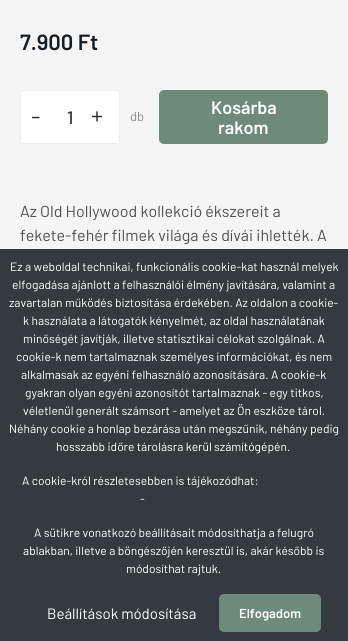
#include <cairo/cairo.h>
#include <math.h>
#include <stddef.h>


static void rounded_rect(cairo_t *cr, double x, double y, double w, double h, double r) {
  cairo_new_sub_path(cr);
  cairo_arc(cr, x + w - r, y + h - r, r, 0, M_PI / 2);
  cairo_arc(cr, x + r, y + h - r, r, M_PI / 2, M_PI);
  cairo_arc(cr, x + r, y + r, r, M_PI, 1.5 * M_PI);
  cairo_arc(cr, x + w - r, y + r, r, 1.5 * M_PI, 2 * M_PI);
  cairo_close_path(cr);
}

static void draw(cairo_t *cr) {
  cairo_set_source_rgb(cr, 245 / 255.0, 245 / 255.0, 245 / 255.0);
  cairo_paint(cr);
  cairo_set_source_rgb(cr, 1, 1, 1);
  rounded_rect(cr, 20.5, 90.5, 99, 53, 2.5);
  cairo_fill_preserve(cr);
  cairo_set_source_rgb(cr, 236 / 255.0, 236 / 255.0, 244 / 255.0);
  cairo_set_line_width(cr, 1);
  cairo_stroke(cr);
  cairo_set_source_rgb(cr, 110 / 255.0, 138 / 255.0, 123 / 255.0);
  rounded_rect(cr, 159, 90, 169, 54, 5);
  cairo_fill(cr);
  cairo_set_source_rgb(cr, 52 / 255.0, 58 / 255.0, 64 / 255.0);
  cairo_rectangle(cr, 0, 249, 348, 392);
  cairo_fill(cr);
  cairo_set_source_rgb(cr, 110 / 255.0, 138 / 255.0, 123 / 255.0);
  rounded_rect(cr, 219, 594, 102, 38, 5);
  cairo_fill(cr);
  cairo_select_font_face(cr, "Barlow SemiBold", CAIRO_FONT_SLANT_NORMAL, CAIRO_FONT_WEIGHT_NORMAL);
  cairo_set_font_size(cr, 22);
  cairo_set_source_rgb(cr, 21 / 255.0, 30 / 255.0, 38 / 255.0);
  cairo_move_to(cr, 20, 50);
  cairo_show_text(cr, "7.900 Ft");
  cairo_select_font_face(cr, "Barlow", CAIRO_FONT_SLANT_NORMAL, CAIRO_FONT_WEIGHT_NORMAL);
  cairo_set_font_size(cr, 24);
  cairo_set_source_rgb(cr, 47 / 255.0, 49 / 255.0, 50 / 255.0);
  cairo_move_to(cr, 31, 125);
  cairo_show_text(cr, "-");
  cairo_select_font_face(cr, "Barlow Medium", CAIRO_FONT_SLANT_NORMAL, CAIRO_FONT_WEIGHT_NORMAL);
  cairo_set_font_size(cr, 18);
  cairo_move_to(cr, 67, 124);
  cairo_show_text(cr, "1");
  cairo_select_font_face(cr, "Barlow", CAIRO_FONT_SLANT_NORMAL, CAIRO_FONT_WEIGHT_NORMAL);
  cairo_set_font_size(cr, 24);
  cairo_move_to(cr, 91, 124);
  cairo_show_text(cr, "+");
  cairo_set_font_size(cr, 13);
  cairo_set_source_rgb(cr, 141 / 255.0, 141 / 255.0, 147 / 255.0);
  cairo_move_to(cr, 130, 121);
  cairo_show_text(cr, "db");
  cairo_select_font_face(cr, "Barlow SemiBold", CAIRO_FONT_SLANT_NORMAL, CAIRO_FONT_WEIGHT_NORMAL);
  cairo_set_font_size(cr, 18);
  cairo_set_source_rgb(cr, 1, 1, 1);
  cairo_move_to(cr, 211, 114);
  cairo_show_text(cr, "Kosárba");
  cairo_move_to(cr, 218, 134);
  cairo_show_text(cr, "rakom");
  cairo_select_font_face(cr, "Barlow", CAIRO_FONT_SLANT_NORMAL, CAIRO_FONT_WEIGHT_NORMAL);
  cairo_set_font_size(cr, 16);
  cairo_set_source_rgb(cr, 79 / 255.0, 81 / 255.0, 83 / 255.0);
  cairo_move_to(cr, 20, 217);
  cairo_show_text(cr, "Az Old Hollywood kollekció ékszereit a");
  cairo_move_to(cr, 20, 241);
  cairo_show_text(cr, "fekete-fehér filmek világa és dívái ihlették. A");
  cairo_set_font_size(cr, 12);
  cairo_set_source_rgb(cr, 1, 1, 1);
  cairo_move_to(cr, 10, 271);
  cairo_show_text(cr, "Ez a weboldal technikai, funkcionális cookie-kat használ melyek");
  cairo_move_to(cr, 12, 289);
  cairo_show_text(cr, "elfogadása ajánlott a felhasználói élmény javítására, valamint a");
  cairo_move_to(cr, 9, 307);
  cairo_show_text(cr, "zavartalan működés biztosítása érdekében. Az oldalon a cookie-");
  cairo_move_to(cr, 23, 325);
  cairo_show_text(cr, "k használata a látogatók kényelmét, az oldal használatának");
  cairo_move_to(cr, 23, 343);
  cairo_show_text(cr, "minőségét javítják, illetve statisztikai célokat szolgálnak. A");
  cairo_move_to(cr, 16, 361);
  cairo_show_text(cr, "cookie-k nem tartalmaznak személyes információkat, és nem");
  cairo_move_to(cr, 21, 379);
  cairo_show_text(cr, "alkalmasak az egyéni felhasználó azonosítására. A cookie-k");
  cairo_move_to(cr, 25, 397);
  cairo_show_text(cr, "gyakran olyan egyéni azonosítót tartalmaznak - egy titkos,");
  cairo_move_to(cr, 23, 415);
  cairo_show_text(cr, "véletlenül generált számsort - amelyet az Ön eszköze tárol.");
  cairo_move_to(cr, 9, 433);
  cairo_show_text(cr, "Néhány cookie a honlap bezárása után megszűnik, néhány pedig");
  cairo_move_to(cr, 56, 451);
  cairo_show_text(cr, "hosszabb időre tárolásra kerül számítógépén.");
  cairo_move_to(cr, 22, 485);
  cairo_show_text(cr, "A cookie-król részletesebben is tájékozódhat:");
  cairo_move_to(cr, 140, 503);
  cairo_show_text(cr, "-");
  cairo_move_to(cr, 34, 537);
  cairo_show_text(cr, "A sütikre vonatkozó beállításait módosíthatja a felugró");
  cairo_move_to(cr, 23, 555);
  cairo_show_text(cr, "ablakban, illetve a böngészőjén keresztül is, akár később is");
  cairo_move_to(cr, 126, 573);
  cairo_show_text(cr, "módosíthat rajtuk.");
  cairo_set_font_size(cr, 15);
  cairo_move_to(cr, 47, 619);
  cairo_show_text(cr, "Beállítások módosítása");
  cairo_select_font_face(cr, "Barlow SemiBold", CAIRO_FONT_SLANT_NORMAL, CAIRO_FONT_WEIGHT_NORMAL);
  cairo_set_font_size(cr, 13);
  cairo_move_to(cr, 239, 618);
  cairo_show_text(cr, "Elfogadom");
}

int main(void) {
  cairo_surface_t *surface = cairo_image_surface_create(CAIRO_FORMAT_RGB24, 348, 641);
  cairo_t *cr = cairo_create(surface);
  cairo_font_options_t *options = cairo_font_options_create();
  cairo_font_options_set_hint_metrics(options, CAIRO_HINT_METRICS_OFF);
  cairo_font_options_set_hint_style(options, CAIRO_HINT_STYLE_NONE);
  cairo_set_font_options(cr, options);
  cairo_set_miter_limit(cr, 4);
  draw(cr);
  cairo_surface_write_to_png(surface, "out.png");
  cairo_font_options_destroy(options);
  cairo_destroy(cr);
  cairo_surface_destroy(surface);
  return 0;
}
